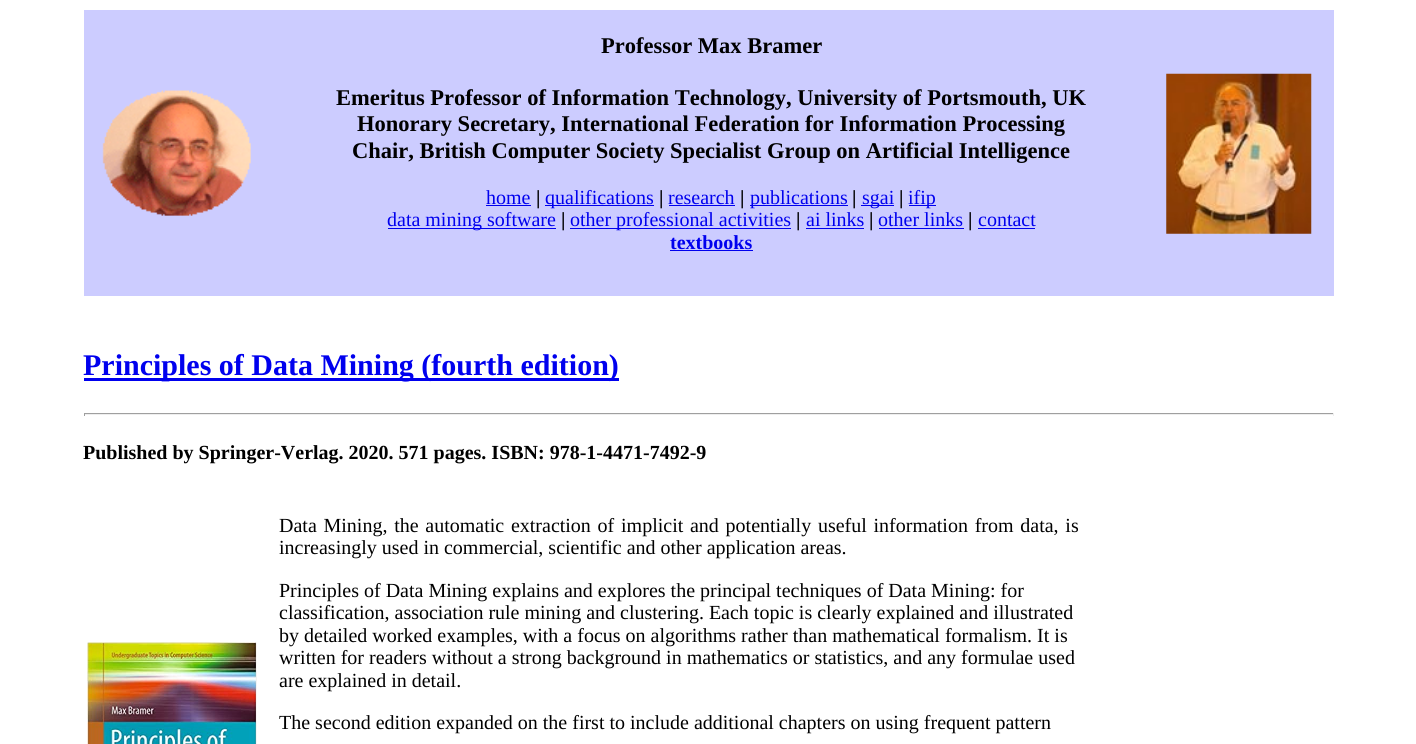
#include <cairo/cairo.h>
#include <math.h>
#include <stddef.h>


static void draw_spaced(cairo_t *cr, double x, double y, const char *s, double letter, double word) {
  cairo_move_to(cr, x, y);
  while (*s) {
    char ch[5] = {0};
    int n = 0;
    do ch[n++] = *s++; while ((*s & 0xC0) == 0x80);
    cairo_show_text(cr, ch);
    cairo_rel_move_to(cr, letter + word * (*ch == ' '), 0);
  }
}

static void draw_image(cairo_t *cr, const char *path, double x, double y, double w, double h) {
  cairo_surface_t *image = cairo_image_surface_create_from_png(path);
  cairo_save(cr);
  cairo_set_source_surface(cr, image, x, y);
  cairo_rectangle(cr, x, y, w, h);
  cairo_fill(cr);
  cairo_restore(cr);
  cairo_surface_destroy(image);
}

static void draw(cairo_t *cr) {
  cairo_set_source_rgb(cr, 1, 1, 1);
  cairo_paint(cr);
  cairo_set_source_rgb(cr, 204 / 255.0, 204 / 255.0, 1);
  cairo_rectangle(cr, 84, 10, 1250, 286);
  cairo_fill(cr);
  draw_image(cr, "images/1.png", 102, 90, 149, 126);
  cairo_set_source_rgb(cr, 0, 0, 238 / 255.0);
  cairo_rectangle(cr, 486, 205, 45, 1);
  cairo_fill(cr);
  cairo_rectangle(cr, 545, 205, 109, 1);
  cairo_fill(cr);
  cairo_rectangle(cr, 669, 205, 66, 1);
  cairo_fill(cr);
  cairo_rectangle(cr, 750, 205, 98, 1);
  cairo_fill(cr);
  cairo_rectangle(cr, 861, 205, 33, 1);
  cairo_fill(cr);
  cairo_rectangle(cr, 909, 205, 27, 1);
  cairo_fill(cr);
  cairo_rectangle(cr, 388, 228, 168, 1);
  cairo_fill(cr);
  cairo_rectangle(cr, 570, 228, 221, 1);
  cairo_fill(cr);
  cairo_rectangle(cr, 806, 228, 58, 1);
  cairo_fill(cr);
  cairo_rectangle(cr, 879, 228, 85, 1);
  cairo_fill(cr);
  cairo_rectangle(cr, 978, 228, 57, 1);
  cairo_fill(cr);
  cairo_rectangle(cr, 670, 250, 83, 1);
  cairo_fill(cr);
  draw_image(cr, "images/2.png", 1166, 73, 146, 161);
  cairo_rectangle(cr, 84, 378, 535, 3);
  cairo_fill(cr);
  cairo_set_source_rgb(cr, 159 / 255.0, 159 / 255.0, 159 / 255.0);
  cairo_rectangle(cr, 84, 413, 1250, 1);
  cairo_fill(cr);
  cairo_set_source_rgb(cr, 238 / 255.0, 238 / 255.0, 238 / 255.0);
  cairo_rectangle(cr, 1333, 413, 1, 3);
  cairo_fill(cr);
  cairo_rectangle(cr, 84, 414, 1250, 1);
  cairo_fill(cr);
  cairo_set_source_rgb(cr, 159 / 255.0, 159 / 255.0, 159 / 255.0);
  cairo_rectangle(cr, 84, 413, 1, 3);
  cairo_fill(cr);
  draw_image(cr, "images/3.png", 87, 642, 170, 102);
  cairo_select_font_face(cr, "Liberation Serif", CAIRO_FONT_SLANT_NORMAL, CAIRO_FONT_WEIGHT_BOLD);
  cairo_set_font_size(cr, 22.5);
  cairo_set_source_rgb(cr, 0, 0, 0);
  cairo_move_to(cr, 601, 53);
  cairo_show_text(cr, "Professor Max Bramer");
  cairo_move_to(cr, 336, 105);
  cairo_show_text(cr, "Emeritus Professor of Information Technology, University of Portsmouth, UK");
  cairo_move_to(cr, 357, 131);
  cairo_show_text(cr, "Honorary Secretary, International Federation for Information Processing");
  cairo_move_to(cr, 352, 158);
  cairo_show_text(cr, "Chair, British Computer Society Specialist Group on Artificial Intelligence");
  cairo_select_font_face(cr, "Liberation Serif", CAIRO_FONT_SLANT_NORMAL, CAIRO_FONT_WEIGHT_NORMAL);
  cairo_set_font_size(cr, 20);
  cairo_set_source_rgb(cr, 0, 0, 238 / 255.0);
  cairo_move_to(cr, 486, 204);
  cairo_show_text(cr, "home");
  cairo_select_font_face(cr, "Liberation Serif", CAIRO_FONT_SLANT_NORMAL, CAIRO_FONT_WEIGHT_BOLD);
  cairo_set_source_rgb(cr, 0, 0, 0);
  cairo_move_to(cr, 536, 204);
  cairo_show_text(cr, "|");
  cairo_select_font_face(cr, "Liberation Serif", CAIRO_FONT_SLANT_NORMAL, CAIRO_FONT_WEIGHT_NORMAL);
  cairo_set_source_rgb(cr, 0, 0, 238 / 255.0);
  cairo_move_to(cr, 545, 204);
  cairo_show_text(cr, "qualifications");
  cairo_select_font_face(cr, "Liberation Serif", CAIRO_FONT_SLANT_NORMAL, CAIRO_FONT_WEIGHT_BOLD);
  cairo_set_source_rgb(cr, 0, 0, 0);
  cairo_move_to(cr, 659, 204);
  cairo_show_text(cr, "|");
  cairo_select_font_face(cr, "Liberation Serif", CAIRO_FONT_SLANT_NORMAL, CAIRO_FONT_WEIGHT_NORMAL);
  cairo_set_source_rgb(cr, 0, 0, 238 / 255.0);
  cairo_move_to(cr, 668, 204);
  cairo_show_text(cr, "research");
  cairo_select_font_face(cr, "Liberation Serif", CAIRO_FONT_SLANT_NORMAL, CAIRO_FONT_WEIGHT_BOLD);
  cairo_set_source_rgb(cr, 0, 0, 0);
  cairo_move_to(cr, 740, 204);
  cairo_show_text(cr, "|");
  cairo_select_font_face(cr, "Liberation Serif", CAIRO_FONT_SLANT_NORMAL, CAIRO_FONT_WEIGHT_NORMAL);
  cairo_set_source_rgb(cr, 0, 0, 238 / 255.0);
  cairo_move_to(cr, 750, 204);
  cairo_show_text(cr, "publications");
  cairo_select_font_face(cr, "Liberation Serif", CAIRO_FONT_SLANT_NORMAL, CAIRO_FONT_WEIGHT_BOLD);
  cairo_set_source_rgb(cr, 0, 0, 0);
  cairo_move_to(cr, 852, 204);
  cairo_show_text(cr, "|");
  cairo_select_font_face(cr, "Liberation Serif", CAIRO_FONT_SLANT_NORMAL, CAIRO_FONT_WEIGHT_NORMAL);
  cairo_set_source_rgb(cr, 0, 0, 238 / 255.0);
  cairo_move_to(cr, 862, 204);
  cairo_show_text(cr, "sgai");
  cairo_select_font_face(cr, "Liberation Serif", CAIRO_FONT_SLANT_NORMAL, CAIRO_FONT_WEIGHT_BOLD);
  cairo_set_source_rgb(cr, 0, 0, 0);
  cairo_move_to(cr, 899, 204);
  cairo_show_text(cr, "|");
  cairo_select_font_face(cr, "Liberation Serif", CAIRO_FONT_SLANT_NORMAL, CAIRO_FONT_WEIGHT_NORMAL);
  cairo_set_source_rgb(cr, 0, 0, 238 / 255.0);
  cairo_move_to(cr, 908, 204);
  cairo_show_text(cr, "ifip");
  cairo_move_to(cr, 387, 226);
  cairo_show_text(cr, "data mining software");
  cairo_select_font_face(cr, "Liberation Serif", CAIRO_FONT_SLANT_NORMAL, CAIRO_FONT_WEIGHT_BOLD);
  cairo_set_source_rgb(cr, 0, 0, 0);
  cairo_move_to(cr, 561, 226);
  cairo_show_text(cr, "|");
  cairo_select_font_face(cr, "Liberation Serif", CAIRO_FONT_SLANT_NORMAL, CAIRO_FONT_WEIGHT_NORMAL);
  cairo_set_source_rgb(cr, 0, 0, 238 / 255.0);
  cairo_move_to(cr, 570, 226);
  cairo_show_text(cr, "other professional activities");
  cairo_select_font_face(cr, "Liberation Serif", CAIRO_FONT_SLANT_NORMAL, CAIRO_FONT_WEIGHT_BOLD);
  cairo_set_source_rgb(cr, 0, 0, 0);
  cairo_move_to(cr, 796, 226);
  cairo_show_text(cr, "|");
  cairo_select_font_face(cr, "Liberation Serif", CAIRO_FONT_SLANT_NORMAL, CAIRO_FONT_WEIGHT_NORMAL);
  cairo_set_source_rgb(cr, 0, 0, 238 / 255.0);
  cairo_move_to(cr, 806, 226);
  cairo_show_text(cr, "ai links");
  cairo_select_font_face(cr, "Liberation Serif", CAIRO_FONT_SLANT_NORMAL, CAIRO_FONT_WEIGHT_BOLD);
  cairo_set_source_rgb(cr, 0, 0, 0);
  cairo_move_to(cr, 869, 226);
  cairo_show_text(cr, "|");
  cairo_select_font_face(cr, "Liberation Serif", CAIRO_FONT_SLANT_NORMAL, CAIRO_FONT_WEIGHT_NORMAL);
  cairo_set_source_rgb(cr, 0, 0, 238 / 255.0);
  cairo_move_to(cr, 878, 226);
  cairo_show_text(cr, "other links");
  cairo_select_font_face(cr, "Liberation Serif", CAIRO_FONT_SLANT_NORMAL, CAIRO_FONT_WEIGHT_BOLD);
  cairo_set_source_rgb(cr, 0, 0, 0);
  cairo_move_to(cr, 968, 226);
  cairo_show_text(cr, "|");
  cairo_select_font_face(cr, "Liberation Serif", CAIRO_FONT_SLANT_NORMAL, CAIRO_FONT_WEIGHT_NORMAL);
  cairo_set_source_rgb(cr, 0, 0, 238 / 255.0);
  cairo_move_to(cr, 978, 226);
  cairo_show_text(cr, "contact");
  cairo_select_font_face(cr, "Liberation Serif", CAIRO_FONT_SLANT_NORMAL, CAIRO_FONT_WEIGHT_BOLD);
  cairo_move_to(cr, 670, 249);
  cairo_show_text(cr, "textbooks");
  cairo_set_font_size(cr, 30);
  cairo_move_to(cr, 83, 375);
  cairo_show_text(cr, "Principles of Data Mining (fourth edition)");
  cairo_set_font_size(cr, 20);
  cairo_set_source_rgb(cr, 0, 0, 0);
  cairo_move_to(cr, 83, 459);
  cairo_show_text(cr, "Published by Springer-Verlag. 2020. 571 pages. ISBN: 978-1-4471-7492-9");
  cairo_select_font_face(cr, "Liberation Serif", CAIRO_FONT_SLANT_NORMAL, CAIRO_FONT_WEIGHT_NORMAL);
  draw_spaced(cr, 279, 532, "Data Mining, the automatic extraction of implicit and potentially useful information from data, is", 0, 1.75);
  cairo_move_to(cr, 279, 554);
  cairo_show_text(cr, "increasingly used in commercial, scientific and other application areas.");
  cairo_move_to(cr, 279, 597);
  cairo_show_text(cr, "Principles of Data Mining explains and explores the principal techniques of Data Mining: for");
  cairo_move_to(cr, 279, 619);
  cairo_show_text(cr, "classification, association rule mining and clustering. Each topic is clearly explained and illustrated");
  cairo_move_to(cr, 279, 642);
  cairo_show_text(cr, "by detailed worked examples, with a focus on algorithms rather than mathematical formalism. It is");
  cairo_move_to(cr, 279, 664);
  cairo_show_text(cr, "written for readers without a strong background in mathematics or statistics, and any formulae used");
  cairo_move_to(cr, 279, 687);
  cairo_show_text(cr, "are explained in detail.");
  cairo_move_to(cr, 279, 729);
  cairo_show_text(cr, "The second edition expanded on the first to include additional chapters on using frequent pattern");
}

int main(void) {
  cairo_surface_t *surface = cairo_image_surface_create(CAIRO_FORMAT_RGB24, 1416, 744);
  cairo_t *cr = cairo_create(surface);
  cairo_font_options_t *options = cairo_font_options_create();
  cairo_font_options_set_hint_metrics(options, CAIRO_HINT_METRICS_OFF);
  cairo_font_options_set_hint_style(options, CAIRO_HINT_STYLE_NONE);
  cairo_set_font_options(cr, options);
  cairo_set_miter_limit(cr, 4);
  draw(cr);
  cairo_surface_write_to_png(surface, "out.png");
  cairo_font_options_destroy(options);
  cairo_destroy(cr);
  cairo_surface_destroy(surface);
  return 0;
}
